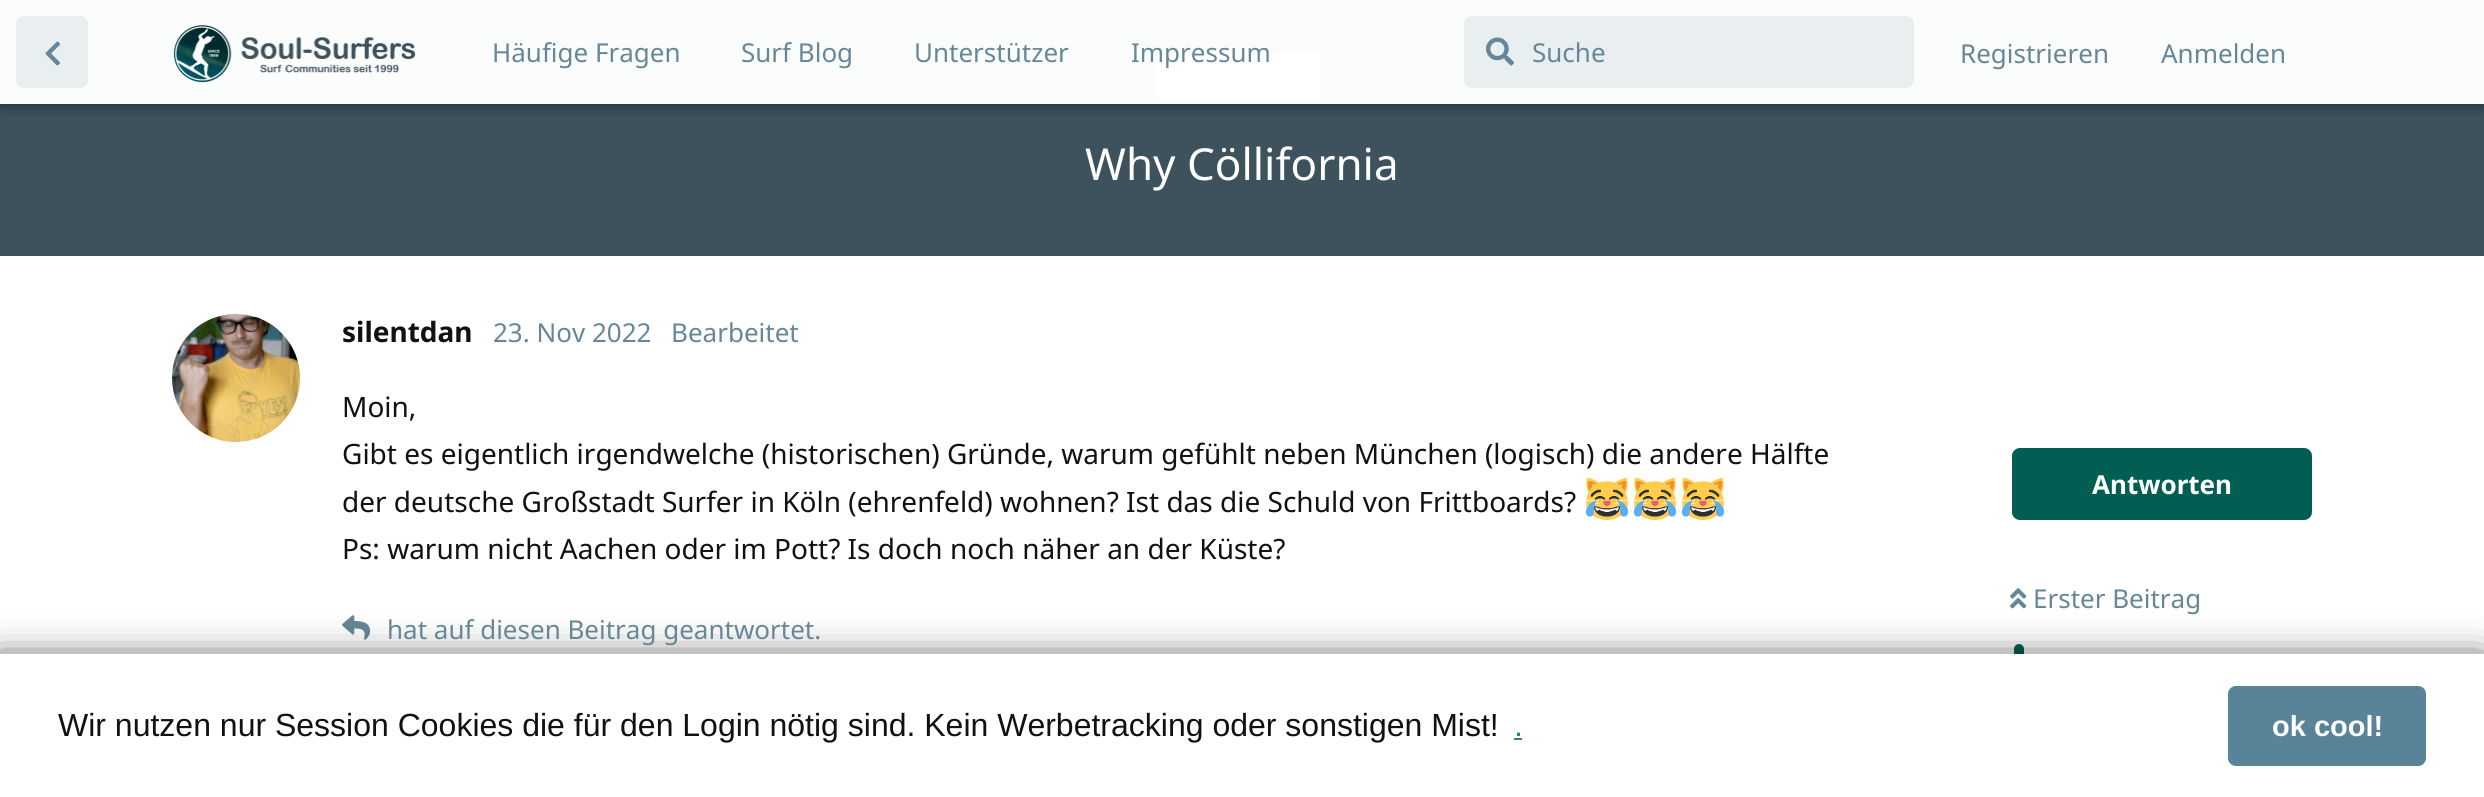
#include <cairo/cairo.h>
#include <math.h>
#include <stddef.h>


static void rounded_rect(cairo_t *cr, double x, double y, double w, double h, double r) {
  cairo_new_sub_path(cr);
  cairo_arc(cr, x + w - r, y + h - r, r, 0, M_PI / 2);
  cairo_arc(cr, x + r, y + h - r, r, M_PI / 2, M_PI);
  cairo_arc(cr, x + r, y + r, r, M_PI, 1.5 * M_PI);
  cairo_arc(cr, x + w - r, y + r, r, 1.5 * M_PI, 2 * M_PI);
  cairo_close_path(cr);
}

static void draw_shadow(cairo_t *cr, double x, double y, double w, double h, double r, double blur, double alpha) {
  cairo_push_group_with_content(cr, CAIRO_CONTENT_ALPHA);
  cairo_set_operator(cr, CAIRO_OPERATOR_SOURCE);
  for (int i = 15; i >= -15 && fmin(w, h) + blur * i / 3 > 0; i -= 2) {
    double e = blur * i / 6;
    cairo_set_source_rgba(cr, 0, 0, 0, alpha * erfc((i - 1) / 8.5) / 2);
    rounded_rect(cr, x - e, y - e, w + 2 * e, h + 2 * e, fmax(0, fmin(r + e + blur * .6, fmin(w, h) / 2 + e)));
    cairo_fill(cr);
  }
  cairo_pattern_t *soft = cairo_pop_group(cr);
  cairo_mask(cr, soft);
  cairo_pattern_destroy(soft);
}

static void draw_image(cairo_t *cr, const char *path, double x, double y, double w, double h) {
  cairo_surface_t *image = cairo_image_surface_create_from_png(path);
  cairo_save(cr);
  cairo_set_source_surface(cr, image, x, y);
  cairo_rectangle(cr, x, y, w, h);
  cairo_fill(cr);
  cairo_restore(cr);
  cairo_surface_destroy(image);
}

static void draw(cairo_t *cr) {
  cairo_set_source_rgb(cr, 1, 1, 1);
  cairo_paint(cr);
  cairo_set_source_rgb(cr, 61 / 255.0, 82 / 255.0, 93 / 255.0);
  cairo_rectangle(cr, 0, 104, 2484, 152);
  cairo_fill(cr);
  cairo_set_source_rgb(cr, 251 / 255.0, 252 / 255.0, 252 / 255.0);
  cairo_rectangle(cr, 0, 0, 2484, 104);
  cairo_fill(cr);
  cairo_set_source_rgb(cr, 1, 1, 1);
  rounded_rect(cr, 1154, 52, 166, 48, 8);
  cairo_fill(cr);
  cairo_save(cr);
  cairo_rectangle(cr, 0, 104, 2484, 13);
  cairo_clip(cr);
  cairo_set_source_rgb(cr, 0, 0, 0);
  draw_shadow(cr, 0, 4, 2484, 104, 0, 6, 0.35);
  cairo_restore(cr);
  cairo_set_source_rgb(cr, 233 / 255.0, 238 / 255.0, 241 / 255.0);
  rounded_rect(cr, 16, 16, 72, 72, 8);
  cairo_fill(cr);
  draw_image(cr, "images/1.png", 45, 41, 15, 25);
  draw_image(cr, "images/2.png", 173, 25, 243, 58);
  rounded_rect(cr, 1464, 16, 450, 72, 8);
  cairo_fill(cr);
  draw_image(cr, "images/3.png", 1486, 37, 28, 29);
  cairo_arc(cr, 236, 378, 64, 0, 2 * M_PI);
  cairo_fill(cr);
  draw_image(cr, "images/4.png", 172, 314, 128, 128);
  draw_image(cr, "images/5.png", 1586, 478, 42, 42);
  draw_image(cr, "images/5.png", 1634, 478, 42, 42);
  draw_image(cr, "images/5.png", 1682, 478, 42, 42);
  draw_image(cr, "images/6.png", 342, 615, 29, 25);
  cairo_set_source_rgb(cr, 2 / 255.0, 94 / 255.0, 82 / 255.0);
  rounded_rect(cr, 2012, 448, 300, 72, 8);
  cairo_fill(cr);
  draw_image(cr, "images/7.png", 2010, 588, 17, 21);
  rounded_rect(cr, 2014, 644, 10, 80, 5);
  cairo_fill(cr);
  cairo_set_source_rgb(cr, 17 / 255.0, 17 / 255.0, 17 / 255.0);
  draw_shadow(cr, -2, 664, 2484, 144, 0, 20, 1);
  cairo_set_source_rgb(cr, 1, 1, 1);
  cairo_rectangle(cr, 0, 654, 2484, 143);
  cairo_fill(cr);
  cairo_set_source_rgb(cr, 51 / 255.0, 128 / 255.0, 117 / 255.0);
  cairo_rectangle(cr, 1514, 738, 8, 2);
  cairo_fill(cr);
  cairo_set_source_rgb(cr, 89 / 255.0, 131 / 255.0, 153 / 255.0);
  rounded_rect(cr, 2228, 686, 198, 80, 8);
  cairo_fill(cr);
  cairo_select_font_face(cr, "Noto Sans", CAIRO_FONT_SLANT_NORMAL, CAIRO_FONT_WEIGHT_NORMAL);
  cairo_set_font_size(cr, 26);
  cairo_set_source_rgb(cr, 102 / 255.0, 135 / 255.0, 153 / 255.0);
  cairo_move_to(cr, 492, 62);
  cairo_show_text(cr, "Häufige Fragen");
  cairo_move_to(cr, 741, 62);
  cairo_show_text(cr, "Surf Blog");
  cairo_move_to(cr, 914, 62);
  cairo_show_text(cr, "Unterstützer");
  cairo_move_to(cr, 1131, 62);
  cairo_show_text(cr, "Impressum");
  cairo_move_to(cr, 1532, 62);
  cairo_show_text(cr, "Suche");
  cairo_move_to(cr, 1960, 63);
  cairo_show_text(cr, "Registrieren");
  cairo_move_to(cr, 2161, 63);
  cairo_show_text(cr, "Anmelden");
  cairo_set_font_size(cr, 44);
  cairo_set_source_rgb(cr, 1, 1, 1);
  cairo_move_to(cr, 1085, 180);
  cairo_show_text(cr, "Why Cöllifornia");
  cairo_select_font_face(cr, "Noto Sans", CAIRO_FONT_SLANT_NORMAL, CAIRO_FONT_WEIGHT_BOLD);
  cairo_set_font_size(cr, 28);
  cairo_set_source_rgb(cr, 17 / 255.0, 17 / 255.0, 17 / 255.0);
  cairo_move_to(cr, 342, 342);
  cairo_show_text(cr, "silentdan");
  cairo_select_font_face(cr, "Noto Sans", CAIRO_FONT_SLANT_NORMAL, CAIRO_FONT_WEIGHT_NORMAL);
  cairo_set_font_size(cr, 26);
  cairo_set_source_rgb(cr, 102 / 255.0, 135 / 255.0, 153 / 255.0);
  cairo_move_to(cr, 493, 342);
  cairo_show_text(cr, "23. Nov 2022");
  cairo_move_to(cr, 671, 342);
  cairo_show_text(cr, "Bearbeitet");
  cairo_set_font_size(cr, 28);
  cairo_set_source_rgb(cr, 17 / 255.0, 17 / 255.0, 17 / 255.0);
  cairo_move_to(cr, 342, 417);
  cairo_show_text(cr, "Moin,");
  cairo_move_to(cr, 342, 464);
  cairo_show_text(cr, "Gibt es eigentlich irgendwelche (historischen) Gründe, warum gefühlt neben München (logisch) die andere Hälfte");
  cairo_move_to(cr, 342, 512);
  cairo_show_text(cr, "der deutsche Großstadt Surfer in Köln (ehrenfeld) wohnen? Ist das die Schuld von Frittboards?");
  cairo_move_to(cr, 342, 559);
  cairo_show_text(cr, "Ps: warum nicht Aachen oder im Pott? Is doch noch näher an der Küste?");
  cairo_set_font_size(cr, 26);
  cairo_set_source_rgb(cr, 102 / 255.0, 135 / 255.0, 153 / 255.0);
  cairo_move_to(cr, 387, 639);
  cairo_show_text(cr, "hat auf diesen Beitrag geantwortet.");
  cairo_select_font_face(cr, "Noto Sans", CAIRO_FONT_SLANT_NORMAL, CAIRO_FONT_WEIGHT_BOLD);
  cairo_set_source_rgb(cr, 1, 1, 1);
  cairo_move_to(cr, 2092, 494);
  cairo_show_text(cr, "Antworten");
  cairo_select_font_face(cr, "Noto Sans", CAIRO_FONT_SLANT_NORMAL, CAIRO_FONT_WEIGHT_NORMAL);
  cairo_set_source_rgb(cr, 102 / 255.0, 135 / 255.0, 153 / 255.0);
  cairo_move_to(cr, 2033, 608);
  cairo_show_text(cr, "Erster Beitrag");
  cairo_select_font_face(cr, "Liberation Sans", CAIRO_FONT_SLANT_NORMAL, CAIRO_FONT_WEIGHT_NORMAL);
  cairo_set_font_size(cr, 32);
  cairo_set_source_rgb(cr, 17 / 255.0, 17 / 255.0, 17 / 255.0);
  cairo_move_to(cr, 58, 736);
  cairo_show_text(cr, "Wir nutzen nur Session Cookies die für den Login nötig sind. Kein Werbetracking oder sonstigen Mist!");
  cairo_set_source_rgb(cr, 51 / 255.0, 128 / 255.0, 117 / 255.0);
  cairo_move_to(cr, 1514, 736);
  cairo_show_text(cr, ".");
  cairo_select_font_face(cr, "Liberation Sans", CAIRO_FONT_SLANT_NORMAL, CAIRO_FONT_WEIGHT_BOLD);
  cairo_set_font_size(cr, 29);
  cairo_set_source_rgb(cr, 1, 1, 1);
  cairo_move_to(cr, 2272, 736);
  cairo_show_text(cr, "ok cool!");
}

int main(void) {
  cairo_surface_t *surface = cairo_image_surface_create(CAIRO_FORMAT_RGB24, 2484, 797);
  cairo_t *cr = cairo_create(surface);
  cairo_font_options_t *options = cairo_font_options_create();
  cairo_font_options_set_hint_metrics(options, CAIRO_HINT_METRICS_OFF);
  cairo_font_options_set_hint_style(options, CAIRO_HINT_STYLE_NONE);
  cairo_set_font_options(cr, options);
  cairo_set_miter_limit(cr, 4);
  draw(cr);
  cairo_surface_write_to_png(surface, "out.png");
  cairo_font_options_destroy(options);
  cairo_destroy(cr);
  cairo_surface_destroy(surface);
  return 0;
}
